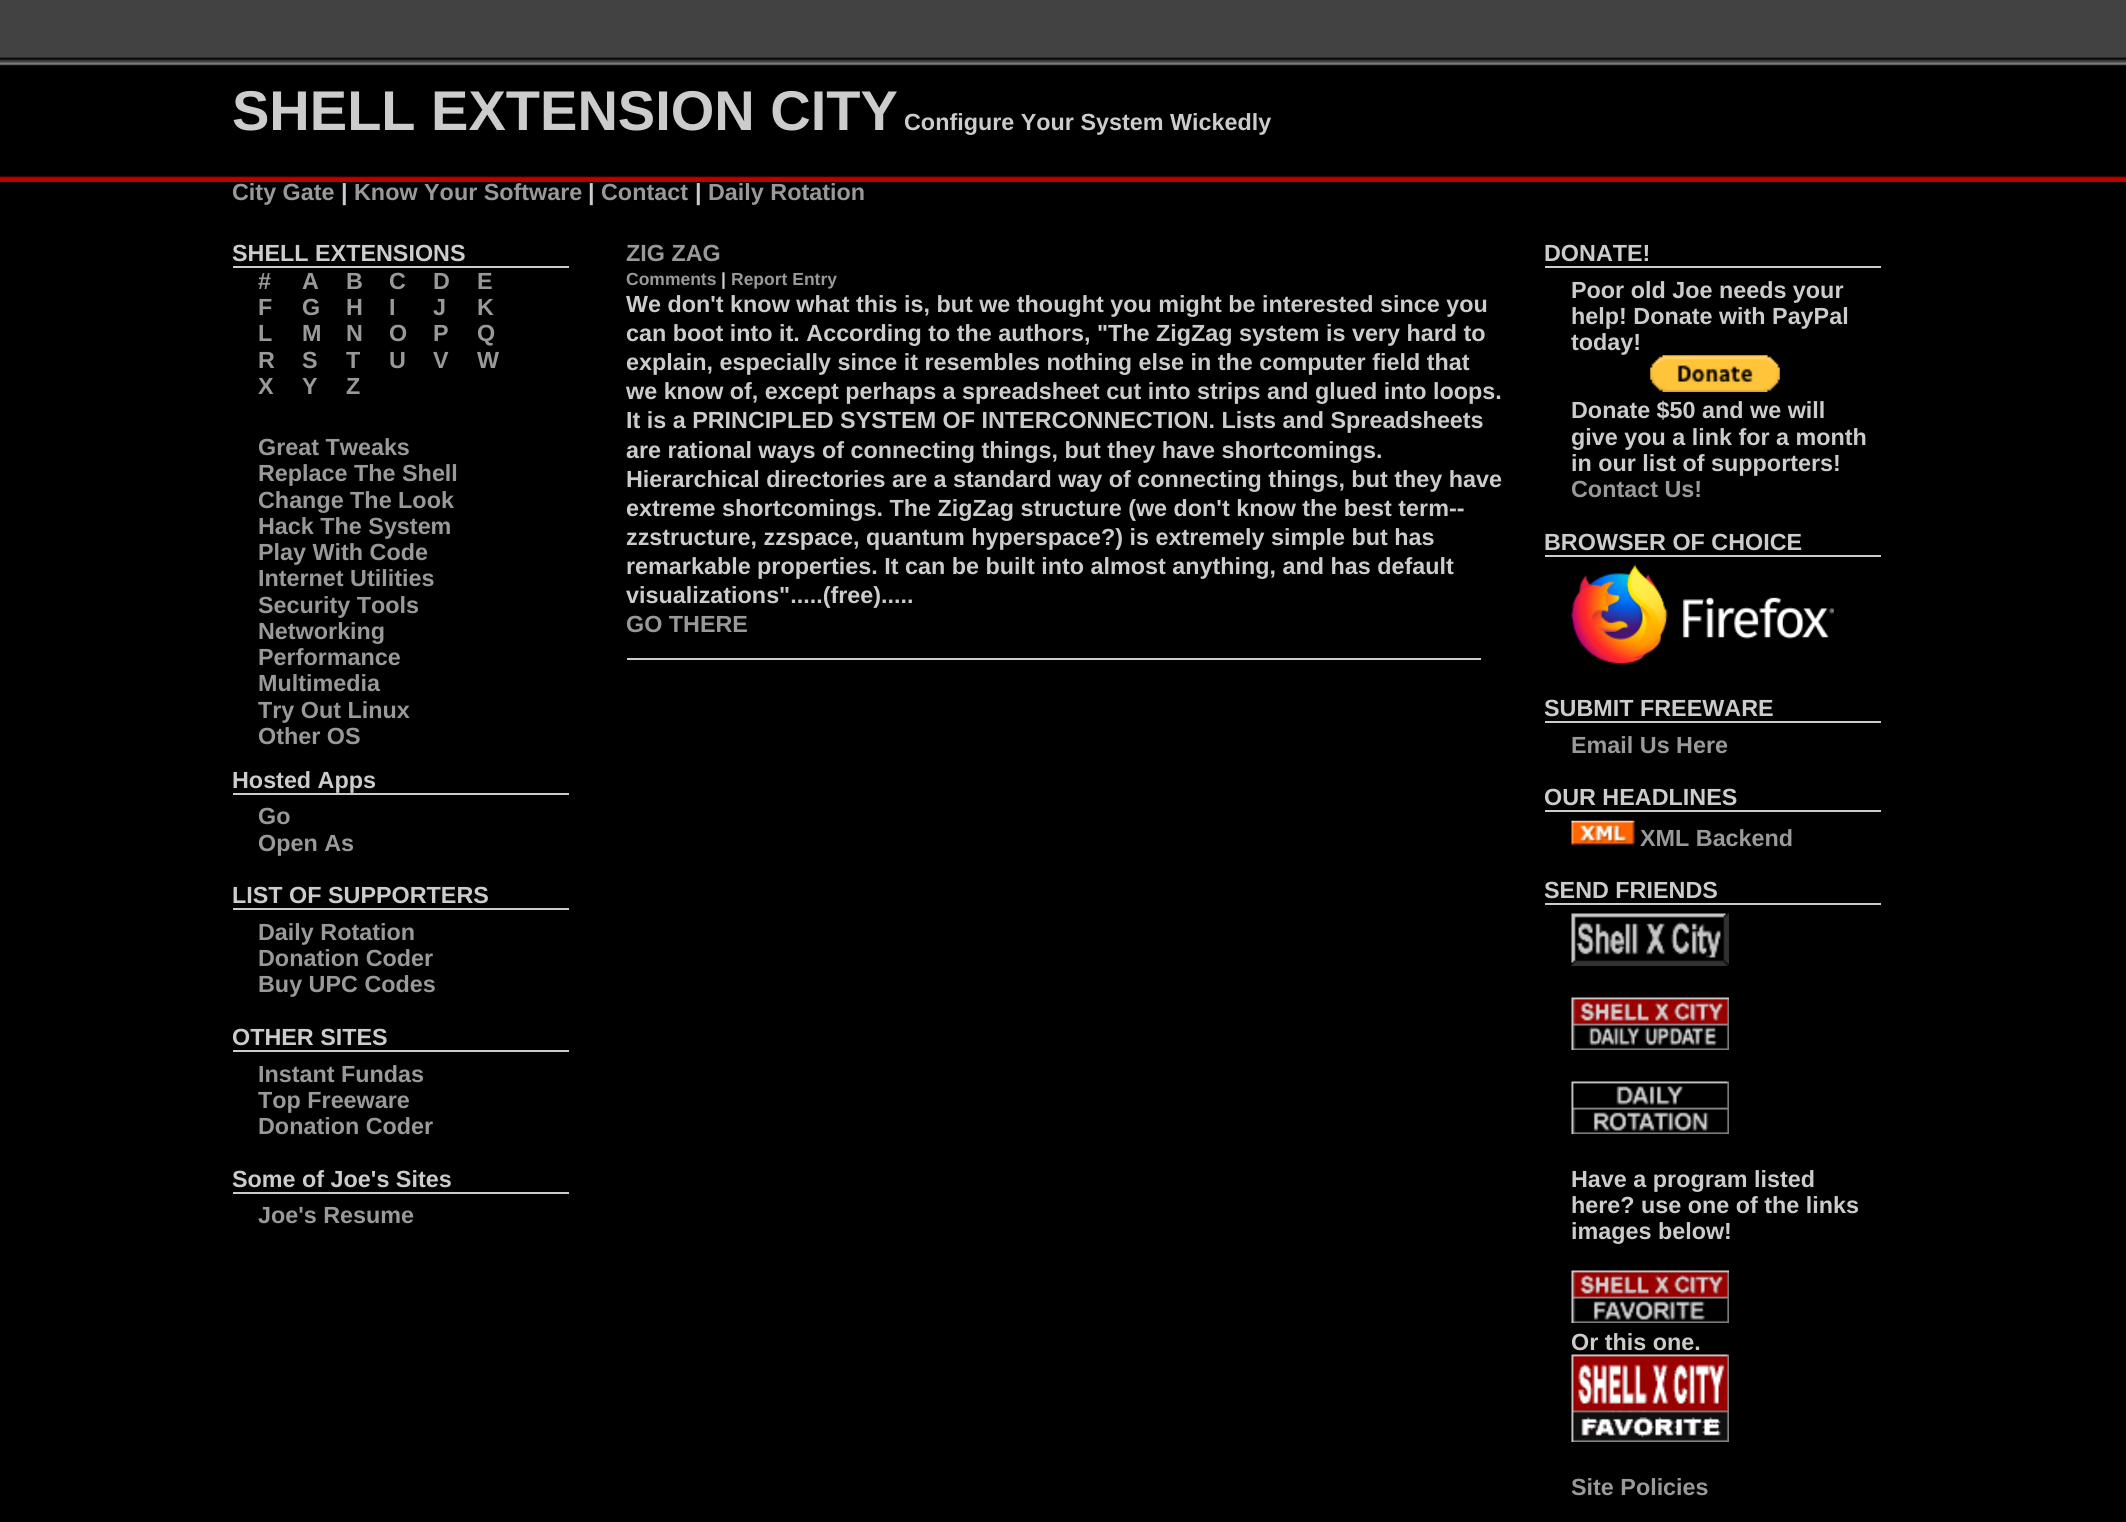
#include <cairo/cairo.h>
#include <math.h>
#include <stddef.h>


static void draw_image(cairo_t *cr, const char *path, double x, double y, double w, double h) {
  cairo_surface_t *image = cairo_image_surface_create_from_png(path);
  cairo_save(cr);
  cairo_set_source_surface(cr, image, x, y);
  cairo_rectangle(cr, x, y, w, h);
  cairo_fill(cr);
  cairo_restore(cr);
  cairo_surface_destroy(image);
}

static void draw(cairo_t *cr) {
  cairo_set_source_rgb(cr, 0, 0, 0);
  cairo_paint(cr);
  draw_image(cr, "images/1.png", 0, 0, 2126, 182);
  cairo_set_source_rgb(cr, 204 / 255.0, 204 / 255.0, 204 / 255.0);
  cairo_rectangle(cr, 233, 266, 336, 2);
  cairo_fill(cr);
  cairo_rectangle(cr, 233, 793, 336, 2);
  cairo_fill(cr);
  cairo_rectangle(cr, 233, 908, 336, 2);
  cairo_fill(cr);
  cairo_rectangle(cr, 233, 1050, 336, 2);
  cairo_fill(cr);
  cairo_rectangle(cr, 233, 1192, 336, 2);
  cairo_fill(cr);
  cairo_rectangle(cr, 627, 658, 854, 2);
  cairo_fill(cr);
  cairo_rectangle(cr, 1545, 266, 336, 2);
  cairo_fill(cr);
  draw_image(cr, "images/2.png", 1650, 355, 130, 37);
  cairo_rectangle(cr, 1545, 555, 336, 2);
  cairo_fill(cr);
  draw_image(cr, "images/3.png", 1571, 565, 263, 99);
  cairo_rectangle(cr, 1545, 721, 336, 2);
  cairo_fill(cr);
  cairo_rectangle(cr, 1545, 810, 336, 2);
  cairo_fill(cr);
  draw_image(cr, "images/4.png", 1571, 820, 64, 26);
  cairo_rectangle(cr, 1545, 903, 336, 2);
  cairo_fill(cr);
  draw_image(cr, "images/5.png", 1571, 913, 158, 53);
  draw_image(cr, "images/6.png", 1571, 997, 158, 53);
  draw_image(cr, "images/7.png", 1571, 1081, 158, 53);
  draw_image(cr, "images/8.png", 1571, 1270, 158, 53);
  draw_image(cr, "images/9.png", 1571, 1354, 158, 88);
  cairo_select_font_face(cr, "Liberation Sans", CAIRO_FONT_SLANT_NORMAL, CAIRO_FONT_WEIGHT_BOLD);
  cairo_set_font_size(cr, 56);
  cairo_move_to(cr, 232, 130);
  cairo_show_text(cr, "SHELL EXTENSION CITY");
  cairo_set_font_size(cr, 23.35);
  cairo_move_to(cr, 904, 130);
  cairo_show_text(cr, "Configure Your System Wickedly");
  cairo_set_source_rgb(cr, 153 / 255.0, 153 / 255.0, 153 / 255.0);
  cairo_move_to(cr, 232, 200);
  cairo_show_text(cr, "City Gate");
  cairo_set_source_rgb(cr, 204 / 255.0, 204 / 255.0, 204 / 255.0);
  cairo_move_to(cr, 341, 200);
  cairo_show_text(cr, "|");
  cairo_set_source_rgb(cr, 153 / 255.0, 153 / 255.0, 153 / 255.0);
  cairo_move_to(cr, 354, 200);
  cairo_show_text(cr, "Know Your Software");
  cairo_set_source_rgb(cr, 204 / 255.0, 204 / 255.0, 204 / 255.0);
  cairo_move_to(cr, 588, 200);
  cairo_show_text(cr, "|");
  cairo_set_source_rgb(cr, 153 / 255.0, 153 / 255.0, 153 / 255.0);
  cairo_move_to(cr, 601, 200);
  cairo_show_text(cr, "Contact");
  cairo_set_source_rgb(cr, 204 / 255.0, 204 / 255.0, 204 / 255.0);
  cairo_move_to(cr, 695, 200);
  cairo_show_text(cr, "|");
  cairo_set_source_rgb(cr, 153 / 255.0, 153 / 255.0, 153 / 255.0);
  cairo_move_to(cr, 708, 200);
  cairo_show_text(cr, "Daily Rotation");
  cairo_set_source_rgb(cr, 204 / 255.0, 204 / 255.0, 204 / 255.0);
  cairo_move_to(cr, 232, 261);
  cairo_show_text(cr, "SHELL EXTENSIONS");
  cairo_set_source_rgb(cr, 153 / 255.0, 153 / 255.0, 153 / 255.0);
  cairo_move_to(cr, 258, 289);
  cairo_show_text(cr, "#");
  cairo_move_to(cr, 258, 315);
  cairo_show_text(cr, "F");
  cairo_move_to(cr, 258, 341);
  cairo_show_text(cr, "L");
  cairo_move_to(cr, 258, 368);
  cairo_show_text(cr, "R");
  cairo_move_to(cr, 258, 394);
  cairo_show_text(cr, "X");
  cairo_move_to(cr, 302, 289);
  cairo_show_text(cr, "A");
  cairo_move_to(cr, 302, 315);
  cairo_show_text(cr, "G");
  cairo_move_to(cr, 302, 341);
  cairo_show_text(cr, "M");
  cairo_move_to(cr, 302, 368);
  cairo_show_text(cr, "S");
  cairo_move_to(cr, 302, 394);
  cairo_show_text(cr, "Y");
  cairo_move_to(cr, 346, 289);
  cairo_show_text(cr, "B");
  cairo_move_to(cr, 346, 315);
  cairo_show_text(cr, "H");
  cairo_move_to(cr, 346, 341);
  cairo_show_text(cr, "N");
  cairo_move_to(cr, 346, 368);
  cairo_show_text(cr, "T");
  cairo_move_to(cr, 346, 394);
  cairo_show_text(cr, "Z");
  cairo_move_to(cr, 389, 289);
  cairo_show_text(cr, "C");
  cairo_move_to(cr, 389, 315);
  cairo_show_text(cr, "I");
  cairo_move_to(cr, 389, 341);
  cairo_show_text(cr, "O");
  cairo_move_to(cr, 389, 368);
  cairo_show_text(cr, "U");
  cairo_move_to(cr, 433, 289);
  cairo_show_text(cr, "D");
  cairo_move_to(cr, 433, 315);
  cairo_show_text(cr, "J");
  cairo_move_to(cr, 433, 341);
  cairo_show_text(cr, "P");
  cairo_move_to(cr, 433, 368);
  cairo_show_text(cr, "V");
  cairo_move_to(cr, 477, 289);
  cairo_show_text(cr, "E");
  cairo_move_to(cr, 477, 315);
  cairo_show_text(cr, "K");
  cairo_move_to(cr, 477, 341);
  cairo_show_text(cr, "Q");
  cairo_move_to(cr, 477, 368);
  cairo_show_text(cr, "W");
  cairo_move_to(cr, 258, 455);
  cairo_show_text(cr, "Great Tweaks");
  cairo_move_to(cr, 258, 481);
  cairo_show_text(cr, "Replace The Shell");
  cairo_move_to(cr, 258, 508);
  cairo_show_text(cr, "Change The Look");
  cairo_move_to(cr, 258, 534);
  cairo_show_text(cr, "Hack The System");
  cairo_move_to(cr, 258, 560);
  cairo_show_text(cr, "Play With Code");
  cairo_move_to(cr, 258, 586);
  cairo_show_text(cr, "Internet Utilities");
  cairo_move_to(cr, 258, 613);
  cairo_show_text(cr, "Security Tools");
  cairo_move_to(cr, 258, 639);
  cairo_show_text(cr, "Networking");
  cairo_move_to(cr, 258, 665);
  cairo_show_text(cr, "Performance");
  cairo_move_to(cr, 258, 691);
  cairo_show_text(cr, "Multimedia");
  cairo_move_to(cr, 258, 718);
  cairo_show_text(cr, "Try Out Linux");
  cairo_move_to(cr, 258, 744);
  cairo_show_text(cr, "Other OS");
  cairo_set_source_rgb(cr, 204 / 255.0, 204 / 255.0, 204 / 255.0);
  cairo_move_to(cr, 232, 788);
  cairo_show_text(cr, "Hosted Apps");
  cairo_set_source_rgb(cr, 153 / 255.0, 153 / 255.0, 153 / 255.0);
  cairo_move_to(cr, 258, 824);
  cairo_show_text(cr, "Go");
  cairo_move_to(cr, 258, 851);
  cairo_show_text(cr, "Open As");
  cairo_set_source_rgb(cr, 204 / 255.0, 204 / 255.0, 204 / 255.0);
  cairo_move_to(cr, 232, 903);
  cairo_show_text(cr, "LIST OF SUPPORTERS");
  cairo_set_source_rgb(cr, 153 / 255.0, 153 / 255.0, 153 / 255.0);
  cairo_move_to(cr, 258, 940);
  cairo_show_text(cr, "Daily Rotation");
  cairo_move_to(cr, 258, 966);
  cairo_show_text(cr, "Donation Coder");
  cairo_move_to(cr, 258, 992);
  cairo_show_text(cr, "Buy UPC Codes");
  cairo_set_source_rgb(cr, 204 / 255.0, 204 / 255.0, 204 / 255.0);
  cairo_move_to(cr, 232, 1045);
  cairo_show_text(cr, "OTHER SITES");
  cairo_set_source_rgb(cr, 153 / 255.0, 153 / 255.0, 153 / 255.0);
  cairo_move_to(cr, 258, 1082);
  cairo_show_text(cr, "Instant Fundas");
  cairo_move_to(cr, 258, 1108);
  cairo_show_text(cr, "Top Freeware");
  cairo_move_to(cr, 258, 1134);
  cairo_show_text(cr, "Donation Coder");
  cairo_set_source_rgb(cr, 204 / 255.0, 204 / 255.0, 204 / 255.0);
  cairo_move_to(cr, 232, 1187);
  cairo_show_text(cr, "Some of Joe's Sites");
  cairo_set_source_rgb(cr, 153 / 255.0, 153 / 255.0, 153 / 255.0);
  cairo_move_to(cr, 258, 1223);
  cairo_show_text(cr, "Joe's Resume");
  cairo_move_to(cr, 626, 261);
  cairo_show_text(cr, "ZIG ZAG");
  cairo_set_font_size(cr, 17.5);
  cairo_move_to(cr, 626, 285);
  cairo_show_text(cr, "Comments");
  cairo_set_source_rgb(cr, 204 / 255.0, 204 / 255.0, 204 / 255.0);
  cairo_move_to(cr, 721, 285);
  cairo_show_text(cr, "|");
  cairo_set_source_rgb(cr, 153 / 255.0, 153 / 255.0, 153 / 255.0);
  cairo_move_to(cr, 731, 285);
  cairo_show_text(cr, "Report Entry");
  cairo_set_font_size(cr, 23.35);
  cairo_set_source_rgb(cr, 204 / 255.0, 204 / 255.0, 204 / 255.0);
  cairo_move_to(cr, 626, 312);
  cairo_show_text(cr, "We don't know what this is, but we thought you might be interested since you");
  cairo_move_to(cr, 626, 341);
  cairo_show_text(cr, "can boot into it. According to the authors, \"The ZigZag system is very hard to");
  cairo_move_to(cr, 626, 370);
  cairo_show_text(cr, "explain, especially since it resembles nothing else in the computer field that");
  cairo_move_to(cr, 626, 399);
  cairo_show_text(cr, "we know of, except perhaps a spreadsheet cut into strips and glued into loops.");
  cairo_move_to(cr, 626, 428);
  cairo_show_text(cr, "It is a PRINCIPLED SYSTEM OF INTERCONNECTION. Lists and Spreadsheets");
  cairo_move_to(cr, 626, 458);
  cairo_show_text(cr, "are rational ways of connecting things, but they have shortcomings.");
  cairo_move_to(cr, 626, 487);
  cairo_show_text(cr, "Hierarchical directories are a standard way of connecting things, but they have");
  cairo_move_to(cr, 626, 516);
  cairo_show_text(cr, "extreme shortcomings. The ZigZag structure (we don't know the best term--");
  cairo_move_to(cr, 626, 545);
  cairo_show_text(cr, "zzstructure, zzspace, quantum hyperspace?) is extremely simple but has");
  cairo_move_to(cr, 626, 574);
  cairo_show_text(cr, "remarkable properties. It can be built into almost anything, and has default");
  cairo_move_to(cr, 626, 603);
  cairo_show_text(cr, "visualizations\".....(free).....");
  cairo_set_source_rgb(cr, 153 / 255.0, 153 / 255.0, 153 / 255.0);
  cairo_move_to(cr, 626, 632);
  cairo_show_text(cr, "GO THERE");
  cairo_set_source_rgb(cr, 204 / 255.0, 204 / 255.0, 204 / 255.0);
  cairo_move_to(cr, 1544, 261);
  cairo_show_text(cr, "DONATE!");
  cairo_move_to(cr, 1571, 298);
  cairo_show_text(cr, "Poor old Joe needs your");
  cairo_move_to(cr, 1571, 324);
  cairo_show_text(cr, "help! Donate with PayPal");
  cairo_move_to(cr, 1571, 350);
  cairo_show_text(cr, "today!");
  cairo_move_to(cr, 1571, 418);
  cairo_show_text(cr, "Donate $50 and we will");
  cairo_move_to(cr, 1571, 445);
  cairo_show_text(cr, "give you a link for a month");
  cairo_move_to(cr, 1571, 471);
  cairo_show_text(cr, "in our list of supporters!");
  cairo_set_source_rgb(cr, 153 / 255.0, 153 / 255.0, 153 / 255.0);
  cairo_move_to(cr, 1571, 497);
  cairo_show_text(cr, "Contact Us!");
  cairo_set_source_rgb(cr, 204 / 255.0, 204 / 255.0, 204 / 255.0);
  cairo_move_to(cr, 1544, 550);
  cairo_show_text(cr, "BROWSER OF CHOICE");
  cairo_move_to(cr, 1544, 716);
  cairo_show_text(cr, "SUBMIT FREEWARE");
  cairo_set_source_rgb(cr, 153 / 255.0, 153 / 255.0, 153 / 255.0);
  cairo_move_to(cr, 1571, 753);
  cairo_show_text(cr, "Email Us Here");
  cairo_set_source_rgb(cr, 204 / 255.0, 204 / 255.0, 204 / 255.0);
  cairo_move_to(cr, 1544, 805);
  cairo_show_text(cr, "OUR HEADLINES");
  cairo_set_source_rgb(cr, 153 / 255.0, 153 / 255.0, 153 / 255.0);
  cairo_move_to(cr, 1640, 846);
  cairo_show_text(cr, "XML Backend");
  cairo_set_source_rgb(cr, 204 / 255.0, 204 / 255.0, 204 / 255.0);
  cairo_move_to(cr, 1544, 898);
  cairo_show_text(cr, "SEND FRIENDS");
  cairo_move_to(cr, 1571, 1187);
  cairo_show_text(cr, "Have a program listed");
  cairo_move_to(cr, 1571, 1213);
  cairo_show_text(cr, "here? use one of the links");
  cairo_move_to(cr, 1571, 1239);
  cairo_show_text(cr, "images below!");
  cairo_move_to(cr, 1571, 1350);
  cairo_show_text(cr, "Or this one.");
  cairo_set_source_rgb(cr, 153 / 255.0, 153 / 255.0, 153 / 255.0);
  cairo_move_to(cr, 1571, 1495);
  cairo_show_text(cr, "Site Policies");
}

int main(void) {
  cairo_surface_t *surface = cairo_image_surface_create(CAIRO_FORMAT_RGB24, 2126, 1522);
  cairo_t *cr = cairo_create(surface);
  cairo_font_options_t *options = cairo_font_options_create();
  cairo_font_options_set_hint_metrics(options, CAIRO_HINT_METRICS_OFF);
  cairo_font_options_set_hint_style(options, CAIRO_HINT_STYLE_NONE);
  cairo_set_font_options(cr, options);
  cairo_set_miter_limit(cr, 4);
  draw(cr);
  cairo_surface_write_to_png(surface, "out.png");
  cairo_font_options_destroy(options);
  cairo_destroy(cr);
  cairo_surface_destroy(surface);
  return 0;
}
